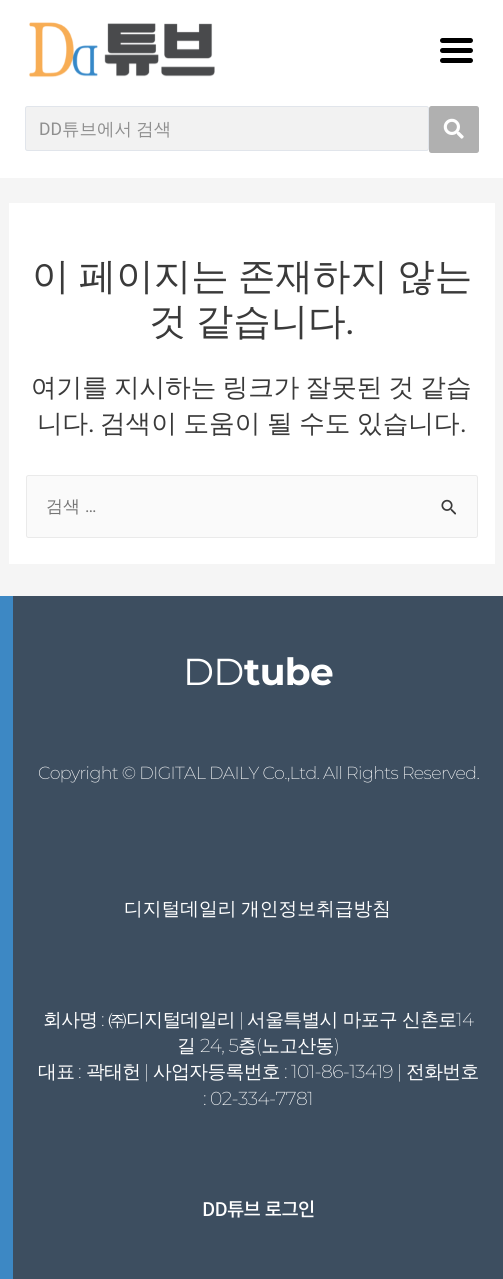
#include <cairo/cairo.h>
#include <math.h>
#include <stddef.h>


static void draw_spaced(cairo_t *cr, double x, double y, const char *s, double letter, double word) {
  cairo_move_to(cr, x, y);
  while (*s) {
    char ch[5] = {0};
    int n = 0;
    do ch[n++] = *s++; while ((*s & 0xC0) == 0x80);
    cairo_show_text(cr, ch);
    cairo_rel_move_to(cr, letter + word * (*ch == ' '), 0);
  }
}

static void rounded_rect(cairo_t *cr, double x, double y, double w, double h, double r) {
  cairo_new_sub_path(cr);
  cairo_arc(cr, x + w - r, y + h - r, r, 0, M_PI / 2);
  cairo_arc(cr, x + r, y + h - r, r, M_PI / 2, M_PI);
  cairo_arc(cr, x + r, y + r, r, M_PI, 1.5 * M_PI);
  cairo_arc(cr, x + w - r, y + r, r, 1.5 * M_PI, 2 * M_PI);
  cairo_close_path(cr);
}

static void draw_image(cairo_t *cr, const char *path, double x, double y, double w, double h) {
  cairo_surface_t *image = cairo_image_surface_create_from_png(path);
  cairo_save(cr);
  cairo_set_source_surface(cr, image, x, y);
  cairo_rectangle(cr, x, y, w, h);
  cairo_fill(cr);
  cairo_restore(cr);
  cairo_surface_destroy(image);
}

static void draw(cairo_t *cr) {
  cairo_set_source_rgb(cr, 245 / 255.0, 245 / 255.0, 245 / 255.0);
  cairo_paint(cr);
  cairo_set_source_rgb(cr, 1, 1, 1);
  cairo_rectangle(cr, 0, 0, 503, 178);
  cairo_fill(cr);
  draw_image(cr, "images/1.png", 29, 22, 186, 56);
  cairo_set_source_rgb(cr, 0, 0, 0);
  rounded_rect(cr, 440, 48, 33, 5, 2.5);
  cairo_fill(cr);
  rounded_rect(cr, 440, 38, 33, 5, 2.5);
  cairo_fill(cr);
  rounded_rect(cr, 440, 58, 33, 5, 2.5);
  cairo_fill(cr);
  cairo_set_source_rgb(cr, 242 / 255.0, 242 / 255.0, 242 / 255.0);
  rounded_rect(cr, 25.5, 106.5, 403, 44, 2);
  cairo_fill_preserve(cr);
  cairo_set_source_rgb(cr, 225 / 255.0, 229 / 255.0, 235 / 255.0);
  cairo_set_line_width(cr, 1);
  cairo_stroke(cr);
  cairo_set_source_rgb(cr, 176 / 255.0, 176 / 255.0, 176 / 255.0);
  rounded_rect(cr, 429, 106, 50, 47, 2.5);
  cairo_fill(cr);
  draw_image(cr, "images/2.png", 443, 118, 21, 21);
  cairo_set_source_rgb(cr, 1, 1, 1);
  cairo_rectangle(cr, 9, 203, 486, 361);
  cairo_fill(cr);
  cairo_set_source_rgb(cr, 250 / 255.0, 250 / 255.0, 250 / 255.0);
  rounded_rect(cr, 26.5, 475.5, 451, 62, 2);
  cairo_fill_preserve(cr);
  cairo_set_source_rgb(cr, 234 / 255.0, 234 / 255.0, 234 / 255.0);
  cairo_stroke(cr);
  draw_image(cr, "images/3.png", 441, 499, 15, 16);
  cairo_set_source_rgb(cr, 61 / 255.0, 78 / 255.0, 96 / 255.0);
  cairo_rectangle(cr, 13, 596, 490, 683);
  cairo_fill(cr);
  cairo_set_source_rgb(cr, 61 / 255.0, 136 / 255.0, 196 / 255.0);
  cairo_rectangle(cr, 0, 596, 13, 683);
  cairo_fill(cr);
  cairo_select_font_face(cr, "Roboto", CAIRO_FONT_SLANT_NORMAL, CAIRO_FONT_WEIGHT_NORMAL);
  cairo_set_font_size(cr, 17.5);
  cairo_set_source_rgb(cr, 143 / 255.0, 143 / 255.0, 143 / 255.0);
  cairo_move_to(cr, 39, 135);
  cairo_show_text(cr, "DD");
  cairo_select_font_face(cr, "WenQuanYi Zen Hei Medium", CAIRO_FONT_SLANT_NORMAL, CAIRO_FONT_WEIGHT_NORMAL);
  draw_spaced(cr, 62, 135, "튜브에서 검색", 0, -1);
  cairo_set_font_size(cr, 37.5);
  cairo_set_source_rgb(cr, 58 / 255.0, 58 / 255.0, 58 / 255.0);
  draw_spaced(cr, 32, 289, "이 페이지는 존재하지 않는", 0, -2);
  draw_spaced(cr, 149, 334, "것 같습니다", 0, -2);
  cairo_select_font_face(cr, "Roboto", CAIRO_FONT_SLANT_NORMAL, CAIRO_FONT_WEIGHT_NORMAL);
  cairo_move_to(cr, 345, 334);
  cairo_show_text(cr, ".");
  cairo_select_font_face(cr, "WenQuanYi Zen Hei Medium", CAIRO_FONT_SLANT_NORMAL, CAIRO_FONT_WEIGHT_NORMAL);
  cairo_set_font_size(cr, 25.6);
  draw_spaced(cr, 31, 396, "여기를 지시하는 링크가 잘못된 것 같습", 0, -1.5);
  cairo_move_to(cr, 37, 432);
  cairo_show_text(cr, "니다");
  cairo_select_font_face(cr, "Roboto", CAIRO_FONT_SLANT_NORMAL, CAIRO_FONT_WEIGHT_NORMAL);
  cairo_move_to(cr, 88, 432);
  cairo_show_text(cr, ".");
  cairo_select_font_face(cr, "WenQuanYi Zen Hei Medium", CAIRO_FONT_SLANT_NORMAL, CAIRO_FONT_WEIGHT_NORMAL);
  draw_spaced(cr, 100, 432, "검색이 도움이 될 수도 있습니다", 0, -1);
  cairo_select_font_face(cr, "Roboto", CAIRO_FONT_SLANT_NORMAL, CAIRO_FONT_WEIGHT_NORMAL);
  cairo_move_to(cr, 460, 432);
  cairo_show_text(cr, ".");
  cairo_select_font_face(cr, "WenQuanYi Zen Hei Medium", CAIRO_FONT_SLANT_NORMAL, CAIRO_FONT_WEIGHT_NORMAL);
  cairo_set_font_size(cr, 17);
  cairo_set_source_rgb(cr, 117 / 255.0, 117 / 255.0, 117 / 255.0);
  cairo_move_to(cr, 46, 512);
  cairo_show_text(cr, "검색");
  cairo_select_font_face(cr, "Roboto", CAIRO_FONT_SLANT_NORMAL, CAIRO_FONT_WEIGHT_NORMAL);
  cairo_move_to(cr, 85, 512);
  cairo_show_text(cr, "…");
  cairo_select_font_face(cr, "Montserrat", CAIRO_FONT_SLANT_NORMAL, CAIRO_FONT_WEIGHT_NORMAL);
  cairo_set_font_size(cr, 37.5);
  cairo_set_source_rgb(cr, 1, 1, 1);
  draw_spaced(cr, 183, 685, "DD", -0.62, 0);
  cairo_select_font_face(cr, "Montserrat", CAIRO_FONT_SLANT_NORMAL, CAIRO_FONT_WEIGHT_BOLD);
  draw_spaced(cr, 244, 685, "tube", -0.62, 0);
  cairo_select_font_face(cr, "Montserrat ExtraLight", CAIRO_FONT_SLANT_NORMAL, CAIRO_FONT_WEIGHT_NORMAL);
  cairo_set_font_size(cr, 17.5);
  draw_spaced(cr, 38, 779, "Copyright © DIGITAL DAILY Co.,Ltd. All Rights Reserved.", -0.62, 0);
  cairo_select_font_face(cr, "WenQuanYi Zen Hei Medium", CAIRO_FONT_SLANT_NORMAL, CAIRO_FONT_WEIGHT_NORMAL);
  cairo_set_font_size(cr, 18.75);
  draw_spaced(cr, 124, 915, "디지털데일리 개인정보취급방침", 0, -1);
  draw_spaced(cr, 43, 1026, "회사명", -0.62, 0);
  cairo_select_font_face(cr, "Montserrat ExtraLight", CAIRO_FONT_SLANT_NORMAL, CAIRO_FONT_WEIGHT_NORMAL);
  draw_spaced(cr, 101, 1026, ":", -0.62, 0);
  cairo_select_font_face(cr, "WenQuanYi Zen Hei Medium", CAIRO_FONT_SLANT_NORMAL, CAIRO_FONT_WEIGHT_NORMAL);
  draw_spaced(cr, 108, 1026, "㈜디지털데일리", -0.62, 0);
  cairo_select_font_face(cr, "Montserrat ExtraLight", CAIRO_FONT_SLANT_NORMAL, CAIRO_FONT_WEIGHT_NORMAL);
  draw_spaced(cr, 239, 1026, "|", -0.62, 0);
  cairo_select_font_face(cr, "WenQuanYi Zen Hei Medium", CAIRO_FONT_SLANT_NORMAL, CAIRO_FONT_WEIGHT_NORMAL);
  draw_spaced(cr, 247, 1026, "서울특별시 마포구 신촌로", -0.62, 0);
  cairo_select_font_face(cr, "Montserrat ExtraLight", CAIRO_FONT_SLANT_NORMAL, CAIRO_FONT_WEIGHT_NORMAL);
  draw_spaced(cr, 456, 1026, "14", -0.62, 0);
  cairo_select_font_face(cr, "WenQuanYi Zen Hei Medium", CAIRO_FONT_SLANT_NORMAL, CAIRO_FONT_WEIGHT_NORMAL);
  draw_spaced(cr, 177, 1052, "길", -0.62, 0);
  cairo_select_font_face(cr, "Montserrat ExtraLight", CAIRO_FONT_SLANT_NORMAL, CAIRO_FONT_WEIGHT_NORMAL);
  draw_spaced(cr, 200, 1052, "24, 5", -0.62, 0);
  cairo_select_font_face(cr, "WenQuanYi Zen Hei Medium", CAIRO_FONT_SLANT_NORMAL, CAIRO_FONT_WEIGHT_NORMAL);
  draw_spaced(cr, 238, 1052, "층 노고산동", -0.62, 0);
  cairo_select_font_face(cr, "Montserrat ExtraLight", CAIRO_FONT_SLANT_NORMAL, CAIRO_FONT_WEIGHT_NORMAL);
  draw_spaced(cr, 256, 1052, "(", -0.62, 0);
  draw_spaced(cr, 334, 1052, ")", -0.62, 0);
  cairo_select_font_face(cr, "WenQuanYi Zen Hei Medium", CAIRO_FONT_SLANT_NORMAL, CAIRO_FONT_WEIGHT_NORMAL);
  draw_spaced(cr, 38, 1078, "대표", -0.62, 0);
  cairo_select_font_face(cr, "Montserrat ExtraLight", CAIRO_FONT_SLANT_NORMAL, CAIRO_FONT_WEIGHT_NORMAL);
  draw_spaced(cr, 78, 1078, ":", -0.62, 0);
  cairo_select_font_face(cr, "WenQuanYi Zen Hei Medium", CAIRO_FONT_SLANT_NORMAL, CAIRO_FONT_WEIGHT_NORMAL);
  draw_spaced(cr, 86, 1078, "곽태헌", -0.62, 0);
  cairo_select_font_face(cr, "Montserrat ExtraLight", CAIRO_FONT_SLANT_NORMAL, CAIRO_FONT_WEIGHT_NORMAL);
  draw_spaced(cr, 144, 1078, "|", -0.62, 0);
  cairo_select_font_face(cr, "WenQuanYi Zen Hei Medium", CAIRO_FONT_SLANT_NORMAL, CAIRO_FONT_WEIGHT_NORMAL);
  draw_spaced(cr, 153, 1078, "사업자등록번호", -0.62, 0);
  cairo_select_font_face(cr, "Montserrat ExtraLight", CAIRO_FONT_SLANT_NORMAL, CAIRO_FONT_WEIGHT_NORMAL);
  draw_spaced(cr, 284, 1078, ": 101-86-13419 |", -0.62, 0);
  cairo_select_font_face(cr, "WenQuanYi Zen Hei Medium", CAIRO_FONT_SLANT_NORMAL, CAIRO_FONT_WEIGHT_NORMAL);
  draw_spaced(cr, 406, 1078, "전화번호", -0.62, 0);
  cairo_select_font_face(cr, "Montserrat ExtraLight", CAIRO_FONT_SLANT_NORMAL, CAIRO_FONT_WEIGHT_NORMAL);
  draw_spaced(cr, 203, 1105, ": 02-334-7781", -0.62, 0);
  cairo_select_font_face(cr, "Noto Sans KR Medium", CAIRO_FONT_SLANT_NORMAL, CAIRO_FONT_WEIGHT_NORMAL);
  draw_spaced(cr, 202, 1216, "DD튜브 로그인", -0.62, 1);
}

int main(void) {
  cairo_surface_t *surface = cairo_image_surface_create(CAIRO_FORMAT_RGB24, 503, 1279);
  cairo_t *cr = cairo_create(surface);
  cairo_font_options_t *options = cairo_font_options_create();
  cairo_font_options_set_hint_metrics(options, CAIRO_HINT_METRICS_OFF);
  cairo_font_options_set_hint_style(options, CAIRO_HINT_STYLE_NONE);
  cairo_set_font_options(cr, options);
  cairo_set_miter_limit(cr, 4);
  draw(cr);
  cairo_surface_write_to_png(surface, "out.png");
  cairo_font_options_destroy(options);
  cairo_destroy(cr);
  cairo_surface_destroy(surface);
  return 0;
}
